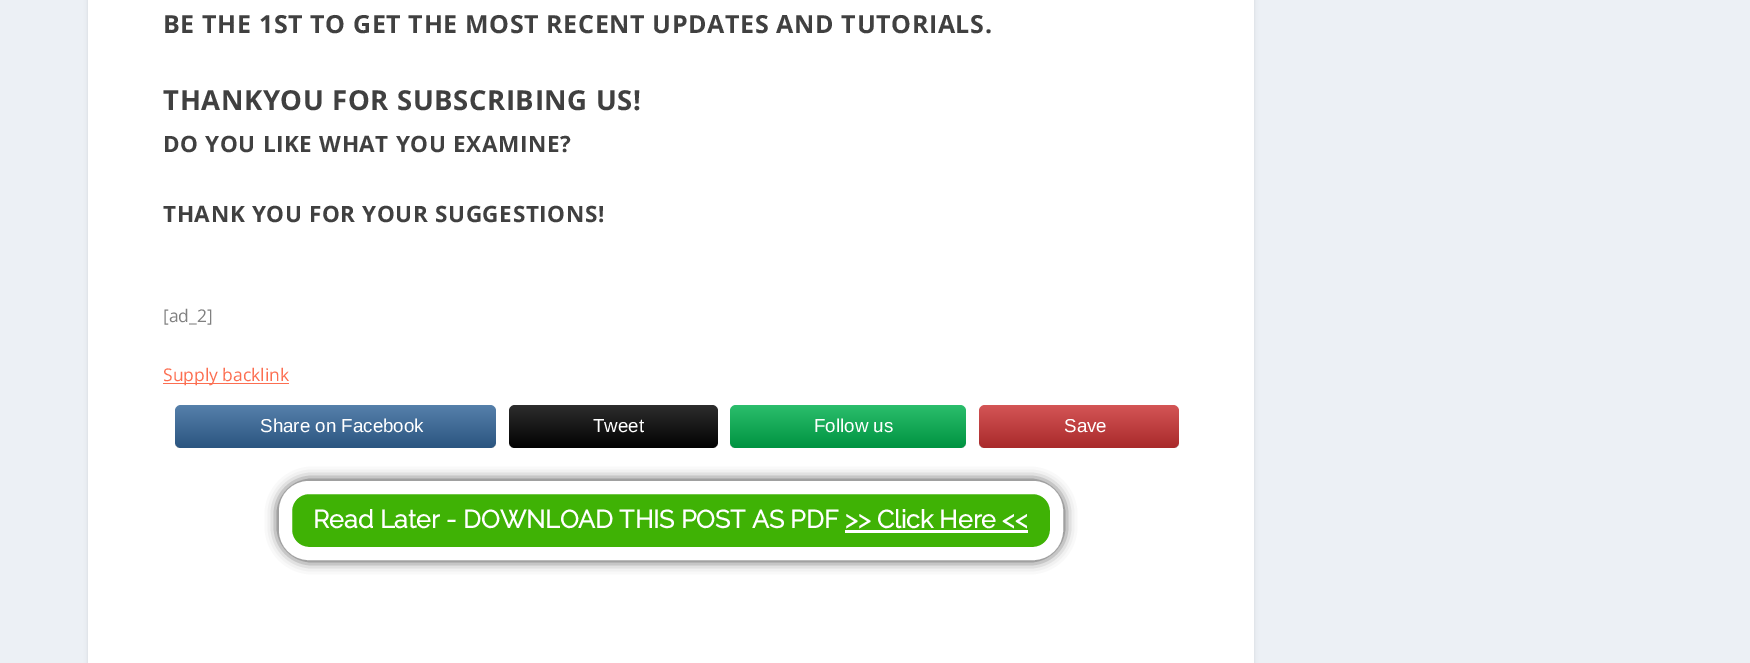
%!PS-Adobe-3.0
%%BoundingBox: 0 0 1750 663
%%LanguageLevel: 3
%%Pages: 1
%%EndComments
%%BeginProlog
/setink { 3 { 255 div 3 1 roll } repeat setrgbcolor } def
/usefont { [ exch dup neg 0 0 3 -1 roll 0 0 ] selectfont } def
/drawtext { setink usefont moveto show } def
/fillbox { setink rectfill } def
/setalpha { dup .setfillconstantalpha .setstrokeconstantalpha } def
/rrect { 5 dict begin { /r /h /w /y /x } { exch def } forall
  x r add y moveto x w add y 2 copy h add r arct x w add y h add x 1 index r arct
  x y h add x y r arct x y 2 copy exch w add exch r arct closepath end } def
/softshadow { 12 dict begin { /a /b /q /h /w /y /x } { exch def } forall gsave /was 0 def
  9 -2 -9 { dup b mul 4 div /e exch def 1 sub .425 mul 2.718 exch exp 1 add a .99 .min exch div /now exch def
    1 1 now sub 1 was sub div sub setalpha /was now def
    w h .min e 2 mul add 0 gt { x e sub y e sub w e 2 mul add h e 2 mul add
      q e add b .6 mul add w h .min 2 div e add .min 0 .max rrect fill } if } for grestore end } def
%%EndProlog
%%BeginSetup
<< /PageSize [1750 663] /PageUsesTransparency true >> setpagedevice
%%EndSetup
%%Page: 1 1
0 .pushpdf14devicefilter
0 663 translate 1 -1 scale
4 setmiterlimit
0 0 1750 663 236 240 245 fillbox
0 0 0 setink
88 -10 1166 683 4 2 0.1 softshadow
88 0 1166 663 255 255 255 fillbox
/OpenSans-Bold 25 usefont
64 64 64 setink
163 33 moveto 0.62 0 (BE THE 1ST TO GET THE MOST RECENT UPDATES AND TUTORIALS.) ashow
/OpenSans-Bold 27.5 usefont
163 110 moveto 0.62 0 (THANKYOU FOR SUBSCRIBING US!) ashow
/OpenSans-Bold 22.5 usefont
163 152 moveto 0.62 0 (DO YOU LIKE WHAT YOU EXAMINE?) ashow
163 222 moveto 0.62 0 (THANK YOU FOR YOUR SUGGESTIONS!) ashow
([ad_2]) 163 322 /OpenSans-Regular 17.5 128 128 128 drawtext
163 383 126 1 252 110 81 fillbox
(Supply backlink) 163 381 /OpenSans-Regular 17.5 252 110 81 drawtext
51 102 153 setink
175 405 321 43 6 rrect fill
0.17 setalpha
gsave 175 405 321 43 6 rrect clip newpath
<< /ShadingType 2 /ColorSpace /DeviceRGB /Coords [336 448 336 405] /Extend [true true] /Function << /FunctionType 2 /Domain [0 1] /C0 [0 0 0] /C1 [1 1 1] /N 1 >> >> shfill grestore
1 setalpha
(Share on Facebook) 260 432 /LiberationSans-Regular 18.75 255 255 255 drawtext
2 2 2 setink
509 405 209 43 6 rrect fill
0.17 setalpha
gsave 509 405 209 43 6 rrect clip newpath
<< /ShadingType 2 /ColorSpace /DeviceRGB /Coords [613 448 613 405] /Extend [true true] /Function << /FunctionType 2 /Domain [0 1] /C0 [0 0 0] /C1 [1 1 1] /N 1 >> >> shfill grestore
1 setalpha
(Tweet) 593 432 /LiberationSans-Regular 18.75 255 255 255 drawtext
0 176 78 setink
730 405 236 43 6 rrect fill
0.17 setalpha
gsave 730 405 236 43 6 rrect clip newpath
<< /ShadingType 2 /ColorSpace /DeviceRGB /Coords [848 448 848 405] /Extend [true true] /Function << /FunctionType 2 /Domain [0 1] /C0 [0 0 0] /C1 [1 1 1] /N 1 >> >> shfill grestore
1 setalpha
(Follow us) 814 432 /LiberationSans-Regular 18.75 255 255 255 drawtext
203 50 51 setink
979 405 200 43 6 rrect fill
0.17 setalpha
gsave 979 405 200 43 6 rrect clip newpath
<< /ShadingType 2 /ColorSpace /DeviceRGB /Coords [1079 448 1079 405] /Extend [true true] /Function << /FunctionType 2 /Domain [0 1] /C0 [0 0 0] /C1 [1 1 1] /N 1 >> >> shfill grestore
1 setalpha
(Save) 1064 432 /LiberationSans-Regular 18.75 255 255 255 drawtext
0 0 0 setink
278 480 786 81 31 6 0.75 softshadow
63 178 5 setink
285.5 487.5 771 66 23.5 rrect gsave fill grestore
255 255 255 setink
13 setlinewidth
stroke
(Read Later - DOWNLOAD THIS POST AS PDF >> Click Here <<) 313 528 /Raleway-Bold 25 255 255 255 drawtext
845 530 183 3 255 255 255 fillbox
.poppdf14devicefilter showpage
%%EOF
